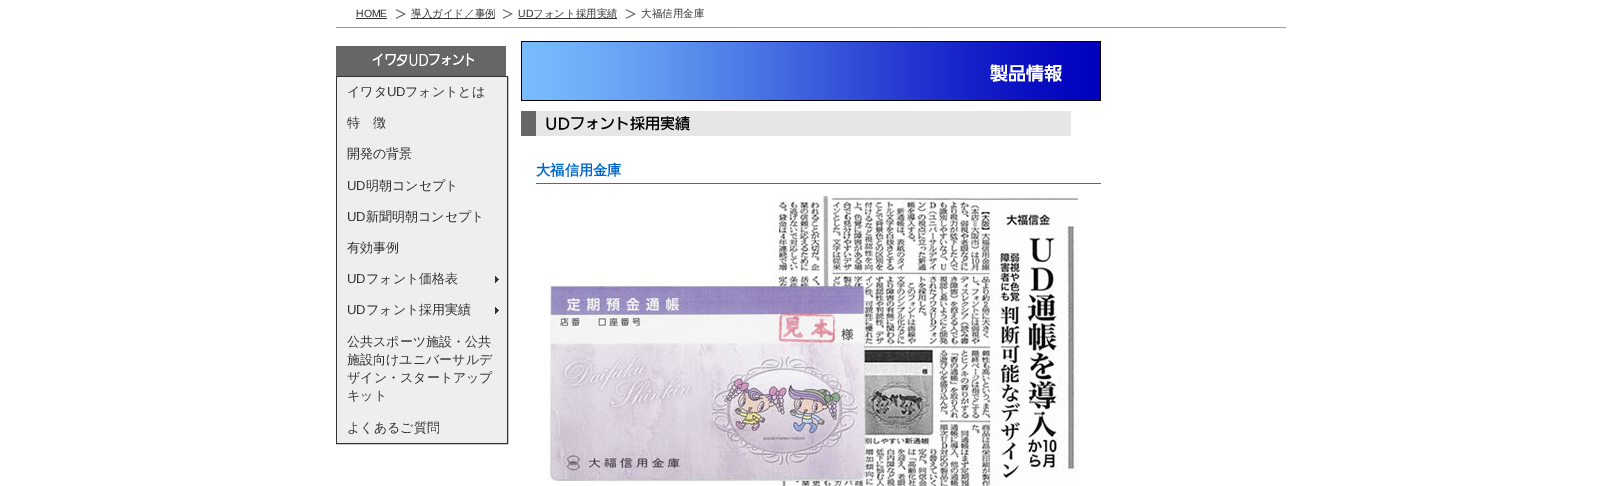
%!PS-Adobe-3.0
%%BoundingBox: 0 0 1622 486
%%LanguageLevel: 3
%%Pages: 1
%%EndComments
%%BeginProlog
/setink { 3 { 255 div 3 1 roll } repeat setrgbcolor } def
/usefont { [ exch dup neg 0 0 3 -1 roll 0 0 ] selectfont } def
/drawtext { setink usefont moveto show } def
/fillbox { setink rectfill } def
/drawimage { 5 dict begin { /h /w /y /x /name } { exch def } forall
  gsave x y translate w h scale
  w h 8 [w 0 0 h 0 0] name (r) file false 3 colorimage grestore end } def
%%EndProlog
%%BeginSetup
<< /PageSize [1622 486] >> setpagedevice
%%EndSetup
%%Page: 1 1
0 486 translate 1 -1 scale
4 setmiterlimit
0 0 1622 486 255 255 255 fillbox
336 27 950 1 153 153 153 fillbox
(HOME) 356 17 /LiberationSans-Regular 10.5 51 51 51 drawtext
356 18 31 1 51 51 51 fillbox
(assets/img1.rgb) 396 9 10 10 drawimage
411 18 84 1 51 51 51 fillbox
(導入ガイド／事例) 411 17 /WenQuanYiZenHei-Medium 10.5 51 51 51 drawtext
(assets/img1.rgb) 503 9 10 10 drawimage
(UD) 518 17 /LiberationSans-Regular 10.5 51 51 51 drawtext
518 18 99 1 51 51 51 fillbox
(フォント採用実績) 533 17 /WenQuanYiZenHei-Medium 10.5 51 51 51 drawtext
(assets/img1.rgb) 626 9 10 10 drawimage
(大福信用金庫) 641 17 /WenQuanYiZenHei-Medium 10.5 51 51 51 drawtext
(assets/img2.rgb) 336 46 170 30 drawimage
336.5 76.5 171 367 rectstroke
337 77 170 366 238 238 238 fillbox
(イワタ) 347 96 /WenQuanYiZenHei-Medium 13 51 51 51 drawtext
(UD) 387 96 /LiberationSans-Regular 13 51 51 51 drawtext
(フォントとは) 405 96 /WenQuanYiZenHei-Medium 13 51 51 51 drawtext
(特　徴) 347 127 /WenQuanYiZenHei-Medium 13 51 51 51 drawtext
(開発の背景) 347 158 /WenQuanYiZenHei-Medium 13 51 51 51 drawtext
(UD) 347 190 /LiberationSans-Regular 13 51 51 51 drawtext
(明朝コンセプト) 366 190 /WenQuanYiZenHei-Medium 13 51 51 51 drawtext
(UD) 347 221 /LiberationSans-Regular 13 51 51 51 drawtext
(新聞明朝コンセプト) 366 221 /WenQuanYiZenHei-Medium 13 51 51 51 drawtext
(有効事例) 347 252 /WenQuanYiZenHei-Medium 13 51 51 51 drawtext
(assets/img3.rgb) 495 276 4 7 drawimage
(UD) 347 283 /LiberationSans-Regular 13 51 51 51 drawtext
(フォント価格表) 366 283 /WenQuanYiZenHei-Medium 13 51 51 51 drawtext
(assets/img3.rgb) 495 307 4 7 drawimage
(UD) 347 314 /LiberationSans-Regular 13 51 51 51 drawtext
(フォント採用実績) 366 314 /WenQuanYiZenHei-Medium 13 51 51 51 drawtext
(公共スポーツ施設・公共) 347 346 /WenQuanYiZenHei-Medium 13 51 51 51 drawtext
(施設向けユニバーサルデ) 347 364 /WenQuanYiZenHei-Medium 13 51 51 51 drawtext
(ザイン・スタートアップ) 347 382 /WenQuanYiZenHei-Medium 13 51 51 51 drawtext
(キット) 347 400 /WenQuanYiZenHei-Medium 13 51 51 51 drawtext
(よくあるご質問) 347 432 /WenQuanYiZenHei-Medium 13 51 51 51 drawtext
(assets/img4.rgb) 521 41 580 60 drawimage
(assets/img5.rgb) 521 111 550 25 drawimage
536 183 565 1 102 102 102 fillbox
(大福信用金庫) 536 175 /WenQuanYiZenHei-Bold 14.25 0 102 204 drawtext
(assets/img6.rgb) 549 195 532 291 drawimage
showpage
%%EOF
